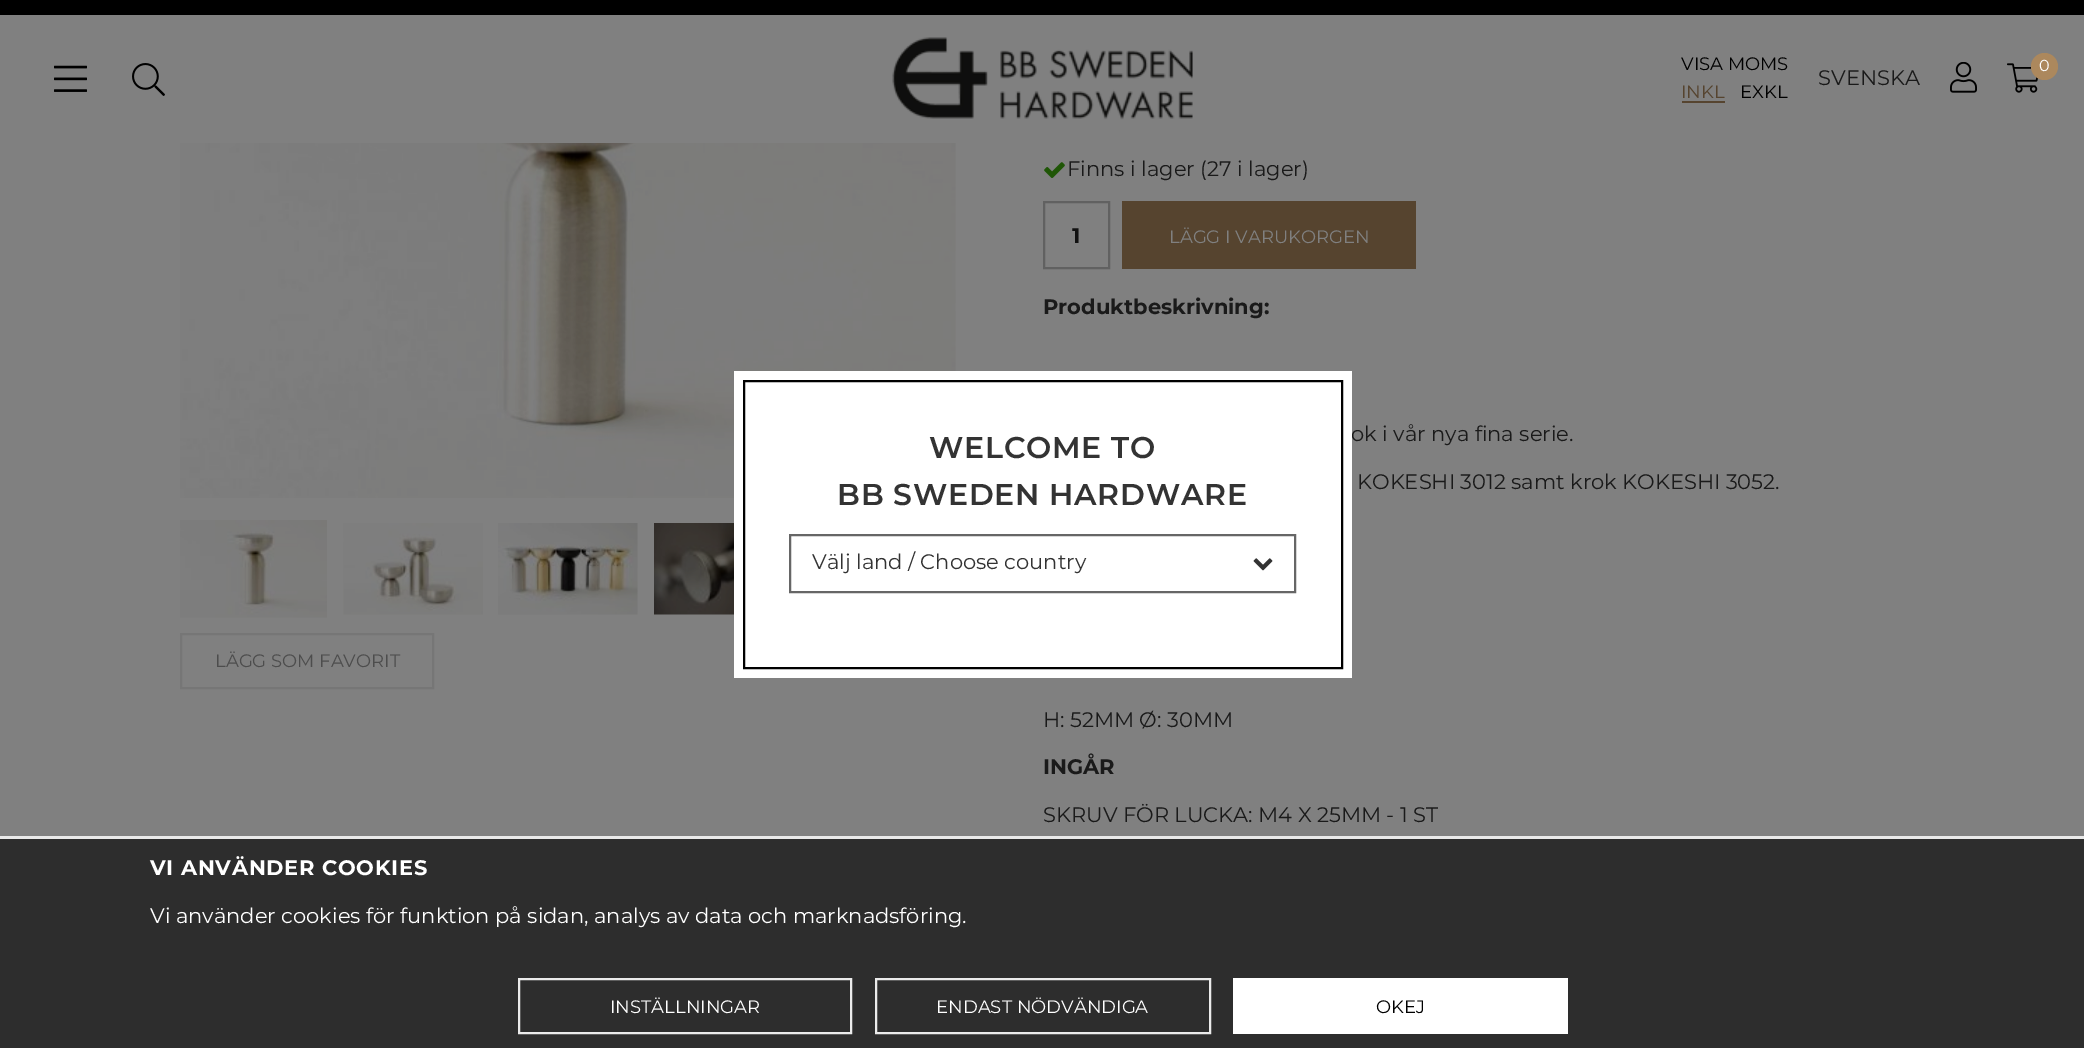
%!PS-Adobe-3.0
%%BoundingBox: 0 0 2084 1048
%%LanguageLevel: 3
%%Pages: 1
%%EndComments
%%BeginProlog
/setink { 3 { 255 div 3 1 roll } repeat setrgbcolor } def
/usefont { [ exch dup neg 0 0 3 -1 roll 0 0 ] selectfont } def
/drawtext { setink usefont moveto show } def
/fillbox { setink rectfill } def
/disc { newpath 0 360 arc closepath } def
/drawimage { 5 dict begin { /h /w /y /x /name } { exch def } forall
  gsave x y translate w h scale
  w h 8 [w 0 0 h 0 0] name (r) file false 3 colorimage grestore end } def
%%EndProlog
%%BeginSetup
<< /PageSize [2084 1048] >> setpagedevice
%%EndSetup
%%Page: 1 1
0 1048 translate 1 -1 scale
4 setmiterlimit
0 0 2084 1048 128 128 128 fillbox
0 0 2084 15 0 0 0 fillbox
(assets/img1.rgb) 892 37 301 83 drawimage
(assets/img2.rgb) 54 65 33 27 drawimage
(assets/img3.rgb) 132 63 33 33 drawimage
(VISA MOMS) 1681 70 /Montserrat-Regular 18 0 0 0 drawtext
(INKL) 1681 98 /Montserrat-Regular 18 86 68 47 drawtext
1682 101 43 2 86 68 47 fillbox
(EXKL) 1740 98 /Montserrat-Regular 18 0 0 0 drawtext
(assets/img4.rgb) 1950 62 27 31 drawimage
(assets/img5.rgb) 2007 63 31 30 drawimage
172 136 93 setink
2044.5 66.5 13.5 disc fill
(0) 2039 71 /Montserrat-Regular 16 255 255 255 drawtext
(SVENSKA) 1818 85 /Montserrat-Regular 21 26 26 26 drawtext
(assets/img7.rgb) 180 143 776 355 drawimage
(ok i vår nya fina serie.) 1351 441 /Montserrat-Regular 21 26 26 26 drawtext
734 371 618 307 255 255 255 fillbox
0 0 0 setink
2 setlinewidth
744 381 598 287 rectstroke
/Montserrat-SemiBold 30 usefont
51 51 51 setink
929 458 moveto 0.75 0 (WELCOME TO) ashow
837 505 moveto 0.75 0 (BB SWEDEN HARDWARE) ashow
102 102 102 setink
790 535 505 57 rectstroke
(Välj land / Choose country) 812 569 /Montserrat-Regular 21 51 51 51 drawtext
(assets/img6.rgb) 1253 558 20 13 drawimage
(assets/img8.rgb) 180 520 147 98 drawimage
(assets/img9.rgb) 343 523 140 92 drawimage
(assets/img10.rgb) 498 523 140 92 drawimage
(assets/img11.rgb) 654 523 80 92 drawimage
(assets/img12.rgb) 1044 162 21 16 drawimage
(Finns i lager \(27 i lager\)) 1067 176 /Montserrat-Regular 21 26 26 26 drawtext
97 97 97 setink
1044 202 65 66 rectstroke
(1) 1072 243 /Montserrat-Bold 21 17 17 17 drawtext
1122 201 294 68 86 68 47 fillbox
(LÄGG I VARUKORGEN) 1169 243 /Montserrat-Regular 18 128 128 128 drawtext
(Produktbeskrivning:) 1043 314 /Montserrat-Bold 21 26 26 26 drawtext
(KOKESHI 3012 samt krok KOKESHI 3052.) 1357 489 /Montserrat-Regular 21 26 26 26 drawtext
(H: 52MM Ø: 30MM) 1043 727 /Montserrat-Regular 21 26 26 26 drawtext
(INGÅR) 1043 774 /Montserrat-Bold 21 26 26 26 drawtext
(SKRUV FÖR LUCKA: M4 X 25MM - 1 ST) 1043 822 /Montserrat-Regular 21 26 26 26 drawtext
118 118 118 setink
181 634 252 54 rectstroke
(LÄGG SOM FAVORIT) 215 667 /Montserrat-Regular 18 77 77 77 drawtext
0 839 2084 209 45 45 45 fillbox
0 836 2084 3 233 233 233 fillbox
/Montserrat-Bold 21 usefont
255 255 255 setink
150 875 moveto 0.75 0 (VI ANVÄNDER COOKIES) ashow
(Vi använder cookies för funktion på sidan, analys av data och marknadsföring.) 150 923 /Montserrat-Regular 21 255 255 255 drawtext
235 235 235 setink
519 979 332 54 rectstroke
(INSTÄLLNINGAR) 610 1013 /Montserrat-Regular 18 255 255 255 drawtext
235 235 235 setink
876 979 334 54 rectstroke
(ENDAST NÖDVÄNDIGA) 936 1013 /Montserrat-Regular 18 255 255 255 drawtext
1233 978 335 56 255 255 255 fillbox
(OKEJ) 1376 1013 /Montserrat-Regular 18 0 0 0 drawtext
showpage
%%EOF
